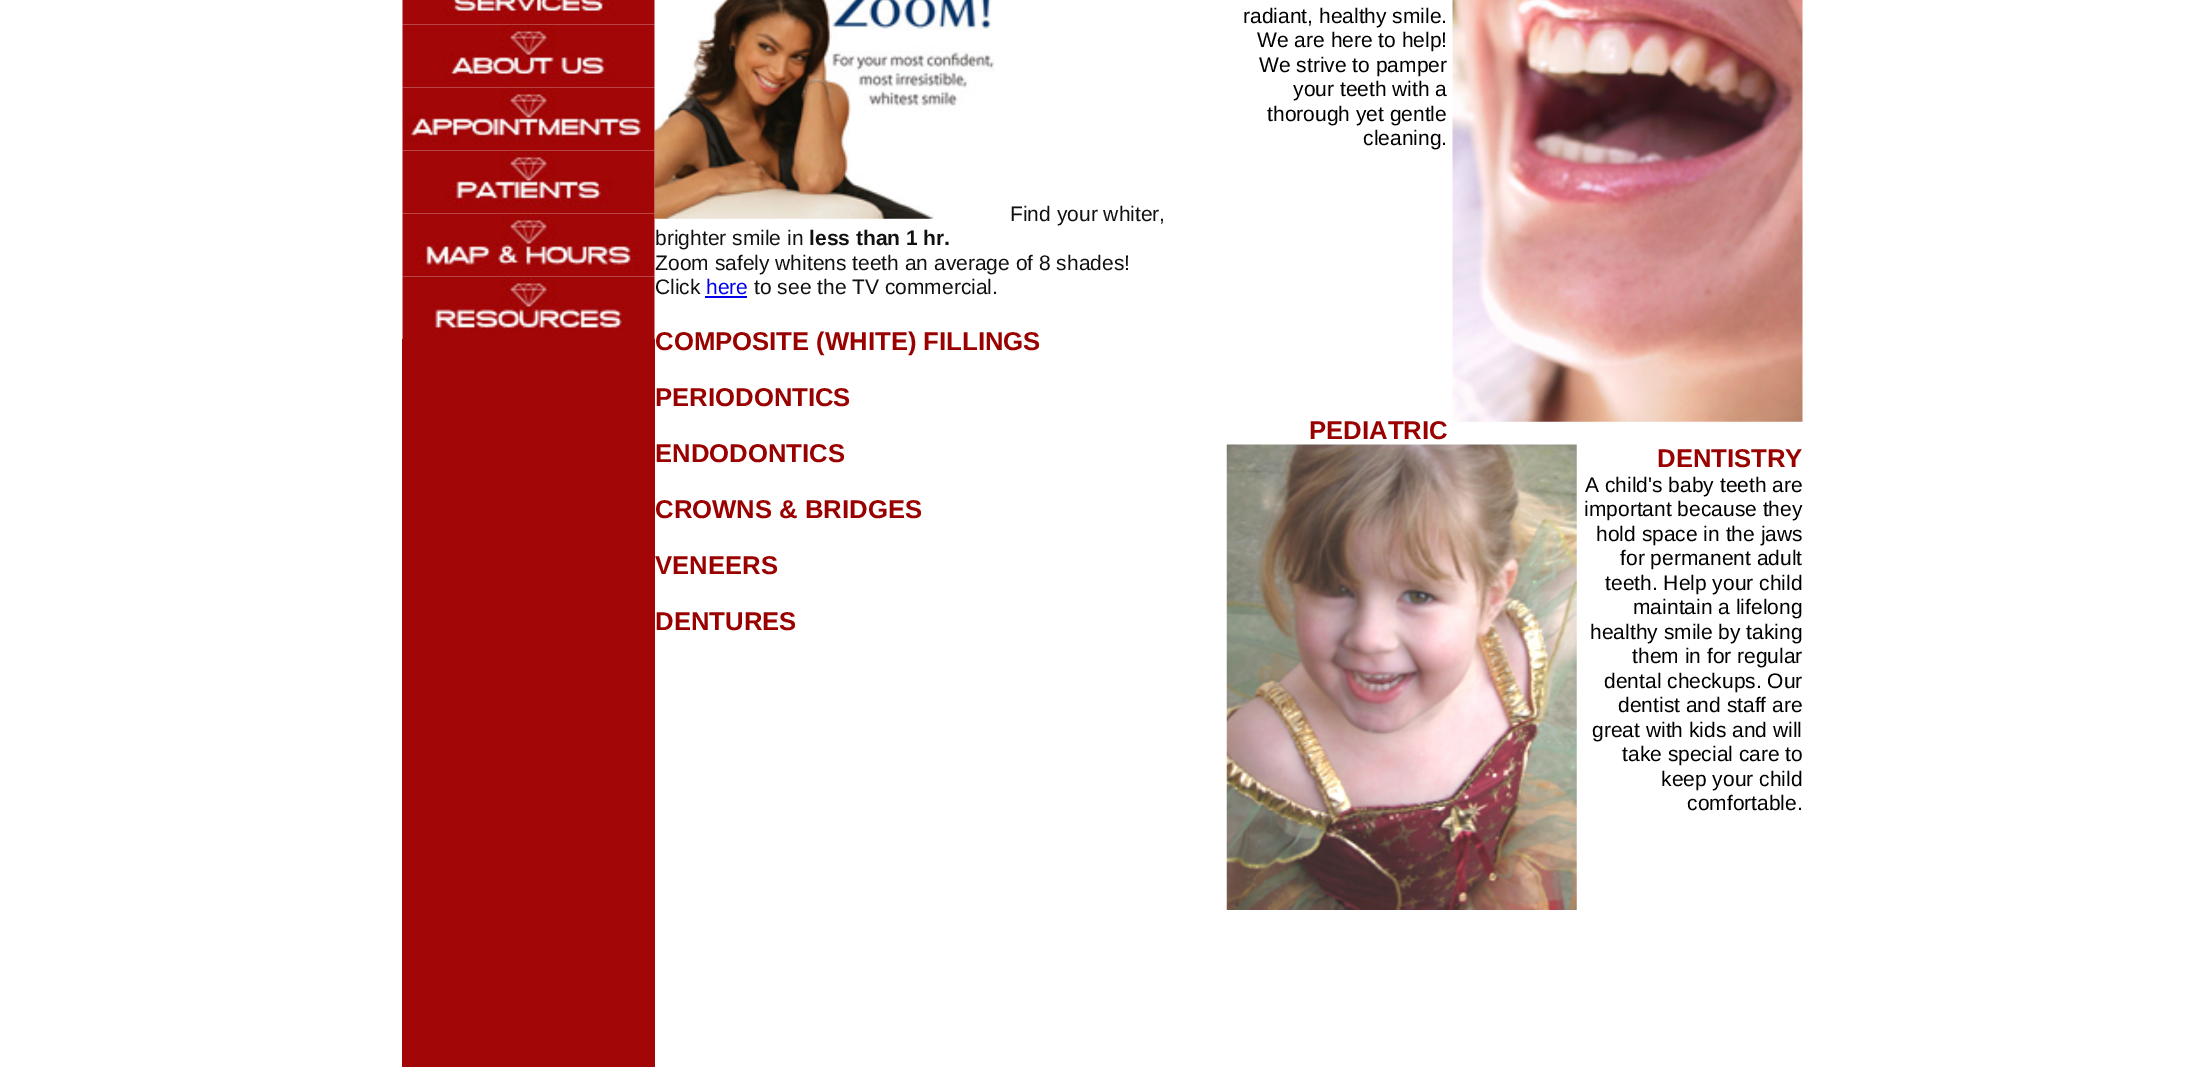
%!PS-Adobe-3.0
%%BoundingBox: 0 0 2205 1067
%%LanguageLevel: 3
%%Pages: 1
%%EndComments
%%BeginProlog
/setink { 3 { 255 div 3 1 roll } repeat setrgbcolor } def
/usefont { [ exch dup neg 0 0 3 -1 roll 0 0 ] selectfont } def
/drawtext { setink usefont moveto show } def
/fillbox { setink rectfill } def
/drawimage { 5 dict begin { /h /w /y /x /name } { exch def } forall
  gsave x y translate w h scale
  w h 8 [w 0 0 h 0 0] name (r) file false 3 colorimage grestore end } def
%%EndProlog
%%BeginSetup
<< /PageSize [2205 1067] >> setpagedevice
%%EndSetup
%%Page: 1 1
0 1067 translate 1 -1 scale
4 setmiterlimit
0 0 2205 1067 255 255 255 fillbox
(assets/img7.rgb) 654 0 341 219 drawimage
(assets/img1.rgb) 402 0 253 25 drawimage
(assets/img2.rgb) 402 24 253 64 drawimage
(assets/img3.rgb) 402 87 253 64 drawimage
(assets/img4.rgb) 402 150 253 64 drawimage
(assets/img5.rgb) 402 213 253 64 drawimage
(assets/img6.rgb) 402 276 253 63 drawimage
402 339 253 728 162 6 7 fillbox
(Find your whiter,) 1010 221 /LiberationSans-Regular 21 17 17 17 drawtext
(brighter smile in) 655 245 /LiberationSans-Regular 21 17 17 17 drawtext
(less than 1 hr.) 809 245 /LiberationSans-Bold 21 17 17 17 drawtext
(Zoom safely whitens teeth an average of 8 shades!) 655 270 /LiberationSans-Regular 21 17 17 17 drawtext
(Click) 655 294 /LiberationSans-Regular 21 17 17 17 drawtext
(here) 706 294 /LiberationSans-Regular 21 0 0 238 drawtext
705 296 42 2 0 0 238 fillbox
(to see the TV commercial.) 754 294 /LiberationSans-Regular 21 17 17 17 drawtext
(COMPOSITE \(WHITE\) FILLINGS) 655 350 /LiberationSans-Bold 25.7 153 0 0 drawtext
(PERIODONTICS) 655 406 /LiberationSans-Bold 25.7 153 0 0 drawtext
(ENDODONTICS) 655 462 /LiberationSans-Bold 25.7 153 0 0 drawtext
(CROWNS & BRIDGES) 655 518 /LiberationSans-Bold 25.7 153 0 0 drawtext
(VENEERS) 655 574 /LiberationSans-Bold 25.7 153 0 0 drawtext
(DENTURES) 655 630 /LiberationSans-Bold 25.7 153 0 0 drawtext
(radiant, healthy smile.) 1243 23 /LiberationSans-Regular 21 0 0 0 drawtext
(assets/img8.rgb) 1452 0 351 422 drawimage
(We are here to help!) 1257 47 /LiberationSans-Regular 21 0 0 0 drawtext
(We strive to pamper) 1259 72 /LiberationSans-Regular 21 0 0 0 drawtext
(your teeth with a) 1293 96 /LiberationSans-Regular 21 0 0 0 drawtext
(thorough yet gentle) 1267 121 /LiberationSans-Regular 21 0 0 0 drawtext
(cleaning.) 1363 145 /LiberationSans-Regular 21 0 0 0 drawtext
(PEDIATRIC) 1309 439 /LiberationSans-Bold 25.7 153 0 0 drawtext
(assets/img9.rgb) 1226 444 351 466 drawimage
(DENTISTRY) 1657 467 /LiberationSans-Bold 25.7 153 0 0 drawtext
(A child's baby teeth are) 1585 492 /LiberationSans-Regular 21 0 0 0 drawtext
(important because they) 1584 516 /LiberationSans-Regular 21 0 0 0 drawtext
(hold space in the jaws) 1596 541 /LiberationSans-Regular 21 0 0 0 drawtext
(for permanent adult) 1620 565 /LiberationSans-Regular 21 0 0 0 drawtext
(teeth. Help your child) 1605 590 /LiberationSans-Regular 21 0 0 0 drawtext
(maintain a lifelong) 1633 614 /LiberationSans-Regular 21 0 0 0 drawtext
(healthy smile by taking) 1590 639 /LiberationSans-Regular 21 0 0 0 drawtext
(them in for regular) 1632 663 /LiberationSans-Regular 21 0 0 0 drawtext
(dental checkups. Our) 1604 688 /LiberationSans-Regular 21 0 0 0 drawtext
(dentist and staff are) 1618 712 /LiberationSans-Regular 21 0 0 0 drawtext
(great with kids and will) 1592 737 /LiberationSans-Regular 21 0 0 0 drawtext
(take special care to) 1622 761 /LiberationSans-Regular 21 0 0 0 drawtext
(keep your child) 1661 786 /LiberationSans-Regular 21 0 0 0 drawtext
(comfortable.) 1687 810 /LiberationSans-Regular 21 0 0 0 drawtext
showpage
%%EOF
